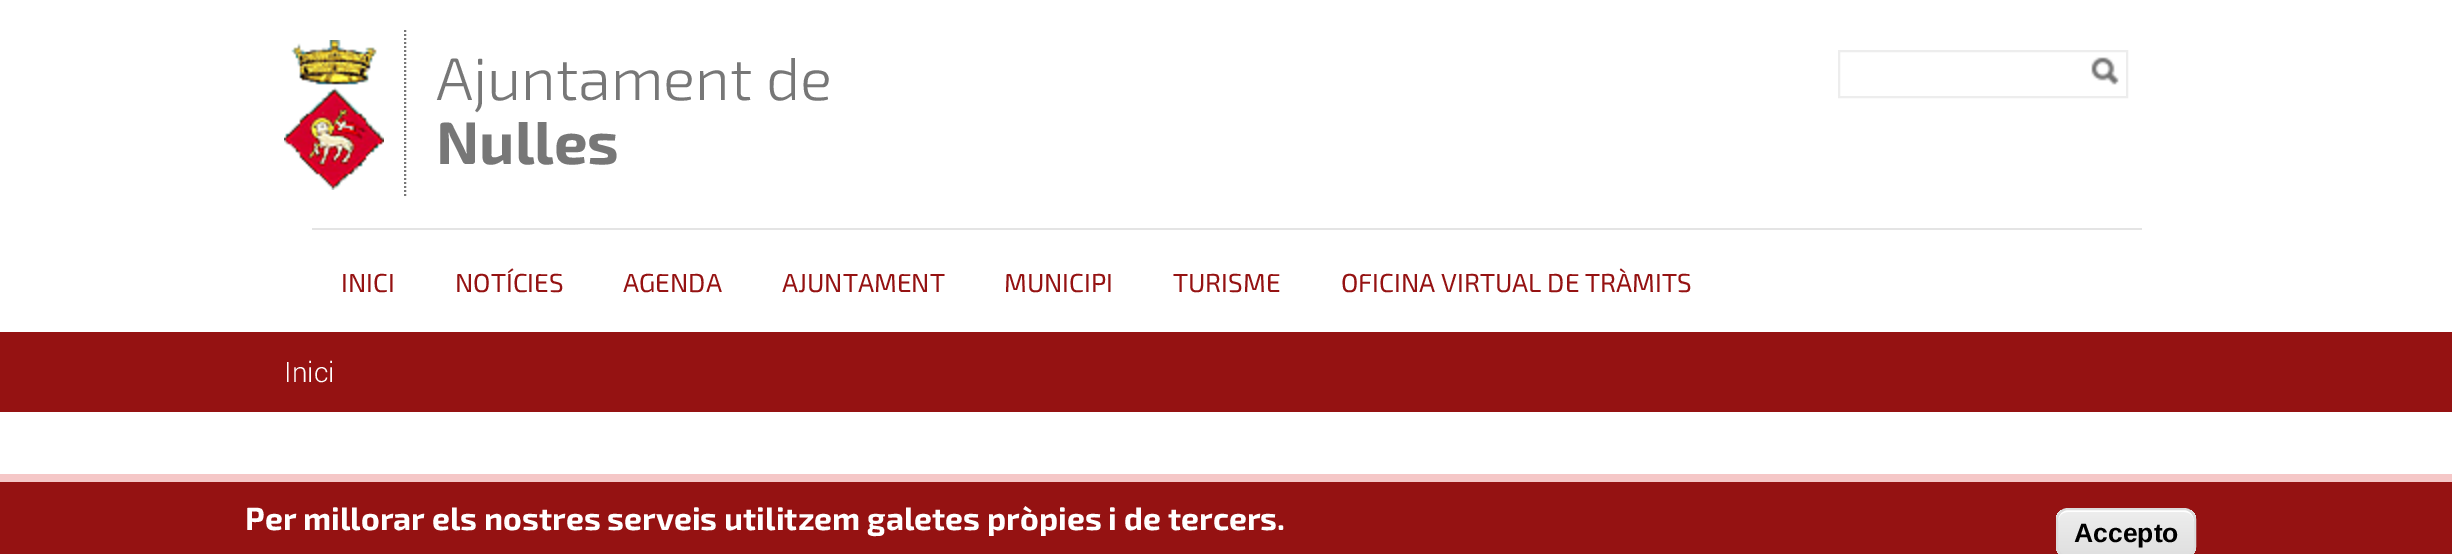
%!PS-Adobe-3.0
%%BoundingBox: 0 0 2452 554
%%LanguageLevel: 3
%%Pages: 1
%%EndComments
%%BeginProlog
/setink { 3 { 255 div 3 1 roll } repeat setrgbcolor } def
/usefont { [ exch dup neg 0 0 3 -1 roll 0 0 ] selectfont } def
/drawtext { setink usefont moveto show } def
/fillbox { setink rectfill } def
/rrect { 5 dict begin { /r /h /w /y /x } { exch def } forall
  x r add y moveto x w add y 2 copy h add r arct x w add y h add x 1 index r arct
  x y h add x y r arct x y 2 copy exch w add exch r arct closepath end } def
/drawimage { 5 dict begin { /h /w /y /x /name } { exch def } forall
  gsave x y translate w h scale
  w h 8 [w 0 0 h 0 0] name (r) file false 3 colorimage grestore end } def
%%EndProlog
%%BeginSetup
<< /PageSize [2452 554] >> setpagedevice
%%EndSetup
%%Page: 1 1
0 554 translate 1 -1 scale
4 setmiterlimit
0 0 2452 554 255 255 255 fillbox
(assets/img1.rgb) 284 40 100 150 drawimage
119 119 119 setink
2 setlinewidth
[2 2] 0 setdash
405 30 moveto 405 198 lineto stroke
(Ajuntament de) 436 100 /Exo2-Light 60 119 119 119 drawtext
(Nulles) 436 164 /Exo2-Bold 60 119 119 119 drawtext
237 237 237 setink
[] 0 setdash
1839 51 288 46 rectstroke
(assets/img2.rgb) 2091 57 28 28 drawimage
312 228 1830 2 228 228 228 fillbox
(INICI) 341 292 /Exo2-Regular 26 149 18 18 drawtext
(NOTÍCIES) 455 292 /Exo2-Regular 26 149 18 18 drawtext
(AGENDA) 623 292 /Exo2-Regular 26 149 18 18 drawtext
(AJUNTAMENT) 782 292 /Exo2-Regular 26 149 18 18 drawtext
(MUNICIPI) 1004 292 /Exo2-Regular 26 149 18 18 drawtext
(TURISME) 1173 292 /Exo2-Regular 26 149 18 18 drawtext
(OFICINA VIRTUAL DE TRÀMITS) 1341 292 /Exo2-Regular 26 149 18 18 drawtext
0 332 2452 80 149 18 18 fillbox
(Inici) 284 382 /Roboto-Light 28 255 255 255 drawtext
0 482 2452 72 149 18 18 fillbox
0 474 2452 8 245 199 199 fillbox
(Per millorar els nostres serveis utilitzem galetes pròpies i de tercers.) 245 530 /Exo2-Bold 32 255 255 255 drawtext
gsave
2056 508 140 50 12 rrect clip newpath
gsave 2056 510 moveto 2196 510 lineto 2196 554 lineto 2056 554 lineto closepath clip newpath
<< /ShadingType 2 /ColorSpace /DeviceRGB /Coords [2126 510 2126 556] /Extend [true true] /Function << /FunctionType 3 /Domain [0 1] /Functions [<< /FunctionType 2 /Domain [0 1] /C0 [0.929 0.929 0.929] /C1 [0.929 0.929 0.929] /N 1 >> << /FunctionType 2 /Domain [0 1] /C0 [0.929 0.929 0.929] /C1 [0.875 0.875 0.875] /N 1 >>] /Bounds [0.05] /Encode [0 1 0 1] >> >> shfill grestore
grestore
2068 512 moveto 2184 512 lineto 2190 512 2194 516 2194 522 curveto 2194 505 2177 510 2165 510 curveto 2087 510 lineto 2075 510 2058 505 2058 522 curveto 2058 516 2062 512 2068 512 curveto closepath fill
220 220 220 setink
2057 509 138 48 11 rrect stroke
(Accepto) 2074 542 /LiberationSans-Bold 26.5 0 0 0 drawtext
showpage
%%EOF
